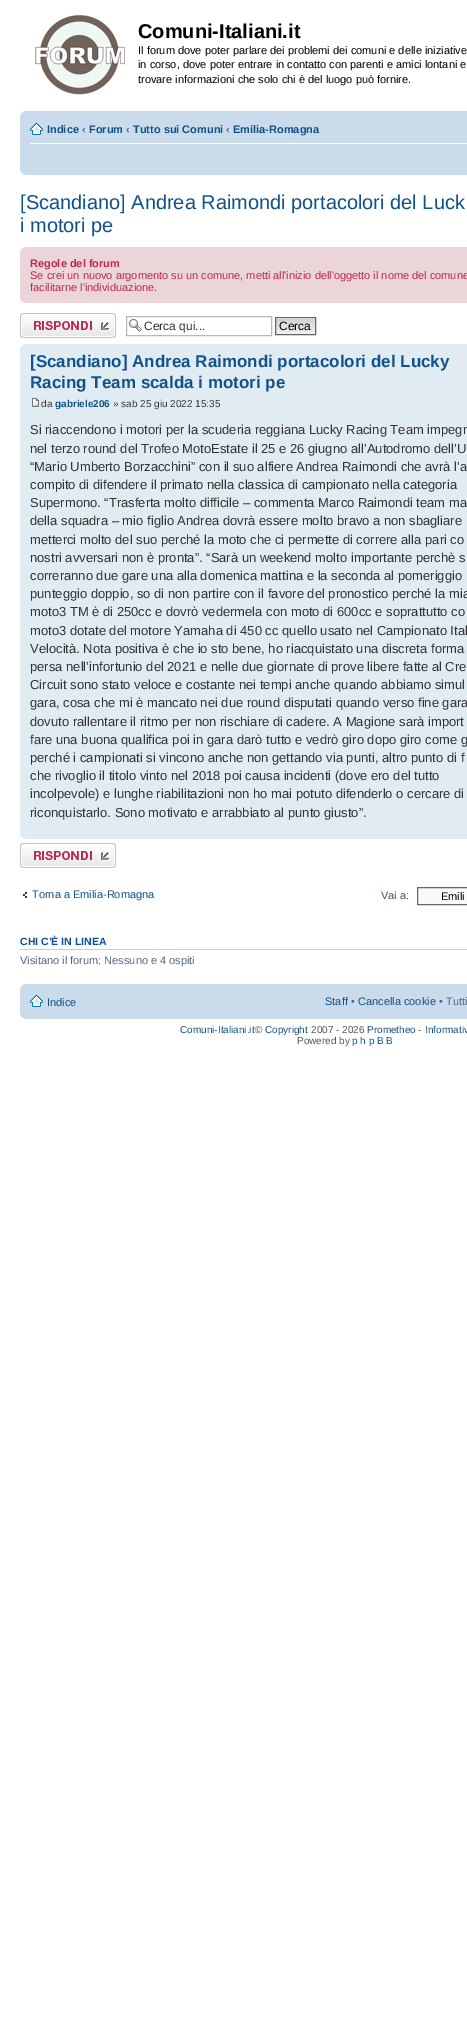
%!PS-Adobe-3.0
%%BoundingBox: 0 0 467 2022
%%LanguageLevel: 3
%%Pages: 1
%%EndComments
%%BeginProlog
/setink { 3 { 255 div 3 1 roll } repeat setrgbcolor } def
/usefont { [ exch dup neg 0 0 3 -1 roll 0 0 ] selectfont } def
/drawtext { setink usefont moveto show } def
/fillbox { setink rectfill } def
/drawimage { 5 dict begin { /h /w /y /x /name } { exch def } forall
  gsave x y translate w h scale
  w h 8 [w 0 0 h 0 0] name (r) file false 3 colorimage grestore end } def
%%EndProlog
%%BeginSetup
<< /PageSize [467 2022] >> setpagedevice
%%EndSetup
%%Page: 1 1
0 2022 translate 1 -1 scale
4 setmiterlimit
0 0 467 2022 255 255 255 fillbox
(assets/img1.rgb) 35 15 90 80 drawimage
(Comuni-Italiani.it) 138 38 /LiberationSans-Bold 20 0 0 0 drawtext
(Il forum dove poter parlare dei problemi dei comuni e delle iniziative) 138 54 /LiberationSans-Regular 11 0 0 0 drawtext
(in corso, dove poter entrare in contatto con parenti e amici lontani e) 138 68 /LiberationSans-Regular 11 0 0 0 drawtext
(trovare informazioni che solo chi è del luogo può fornire.) 138 83 /LiberationSans-Regular 11 0 0 0 drawtext
20 111 447 64 202 220 235 fillbox
(assets/img2.rgb) 20 111 5 5 drawimage
30 143 437 1 255 255 255 fillbox
(assets/img3.rgb) 30 123 13 12 drawimage
(Indice) 47 133 /LiberationSans-Bold 11 16 82 137 drawtext
(‹) 82 133 /LiberationSans-Bold 11 83 100 130 drawtext
(Forum) 89 133 /LiberationSans-Bold 11 16 82 137 drawtext
(‹) 126 133 /LiberationSans-Bold 11 83 100 130 drawtext
(Tutto sui Comuni) 133 133 /LiberationSans-Bold 11 16 82 137 drawtext
(‹) 226 133 /LiberationSans-Bold 11 83 100 130 drawtext
(Emilia-Romagna) 233 133 /LiberationSans-Bold 11 16 82 137 drawtext
(assets/img4.rgb) 20 170 5 5 drawimage
([Scandiano] Andrea Raimondi portacolori del Luck) 20 209 /LiberationSans-Regular 20 16 82 137 drawtext
(i motori pe) 20 232 /LiberationSans-Regular 20 16 82 137 drawtext
20 247 447 56 236 213 216 fillbox
(assets/img5.rgb) 20 247 5 5 drawimage
(Regole del forum) 30 267 /LiberationSans-Bold 11 188 42 77 drawtext
(Se crei un nuovo argomento su un comune, metti all'inizio dell'oggetto il nome del comune) 30 279 /LiberationSans-Regular 11 188 42 77 drawtext
(facilitarne l'individuazione.) 30 291 /LiberationSans-Regular 11 188 42 77 drawtext
(assets/img6.rgb) 20 298 5 5 drawimage
(assets/img7.rgb) 20 313 96 25 drawimage
(assets/img8.rgb) 129 319 13 13 drawimage
180 186 192 setink
126.5 316.5 145 19 rectstroke
(Cerca qui...) 144 330 /LiberationSans-Regular 12 51 51 51 drawtext
(assets/img9.rgb) 276 318 39 16 drawimage
102 102 102 setink
275.5 317.5 40 17 rectstroke
(Cerca) 279 330 /LiberationSans-Regular 12 0 0 0 drawtext
20 344 447 495 225 235 242 fillbox
(assets/img10.rgb) 20 344 5 5 drawimage
([Scandiano] Andrea Raimondi portacolori del Lucky) 30 367 /LiberationSans-Bold 17 16 82 137 drawtext
(Racing Team scalda i motori pe) 30 388 /LiberationSans-Bold 17 16 82 137 drawtext
(assets/img11.rgb) 32 398 7 9 drawimage
(da) 41 407 /LiberationSans-Regular 10 51 51 51 drawtext
(gabriele206) 55 407 /LiberationSans-Bold 10 16 82 137 drawtext
(» sab 25 giu 2022 15:35) 113 407 /LiberationSans-Regular 10 51 51 51 drawtext
(Si riaccendono i motori per la scuderia reggiana Lucky Racing Team impegn) 30 434 /LiberationSans-Regular 13 51 51 51 drawtext
(nel terzo round del Trofeo MotoEstate il 25 e 26 giugno all’Autodromo dell’U) 30 453 /LiberationSans-Regular 13 51 51 51 drawtext
(“Mario Umberto Borzacchini” con il suo alfiere Andrea Raimondi che avrà l’a) 30 471 /LiberationSans-Regular 13 51 51 51 drawtext
(compito di difendere il primato nella classica di campionato nella categoria) 30 489 /LiberationSans-Regular 13 51 51 51 drawtext
(Supermono. “Trasferta molto difficile – commenta Marco Raimondi team ma) 30 507 /LiberationSans-Regular 13 51 51 51 drawtext
(della squadra – mio figlio Andrea dovrà essere molto bravo a non sbagliare) 30 525 /LiberationSans-Regular 13 51 51 51 drawtext
(metterci molto del suo perché la moto che ci permette di correre alla pari co) 30 544 /LiberationSans-Regular 13 51 51 51 drawtext
(nostri avversari non è pronta”. “Sarà un weekend molto importante perchè s) 30 562 /LiberationSans-Regular 13 51 51 51 drawtext
(correranno due gare una alla domenica mattina e la seconda al pomeriggio) 30 580 /LiberationSans-Regular 13 51 51 51 drawtext
(punteggio doppio, so di non partire con il favore del pronostico perché la mia) 30 598 /LiberationSans-Regular 13 51 51 51 drawtext
(moto3 TM è di 250cc e dovrò vedermela con moto di 600cc e soprattutto co) 30 616 /LiberationSans-Regular 13 51 51 51 drawtext
(moto3 dotate del motore Yamaha di 450 cc quello usato nel Campionato Ital) 30 635 /LiberationSans-Regular 13 51 51 51 drawtext
(Velocità. Nota positiva è che io sto bene, ho riacquistato una discreta forma) 30 653 /LiberationSans-Regular 13 51 51 51 drawtext
(persa nell’infortunio del 2021 e nelle due giornate di prove libere fatte al Cre) 30 671 /LiberationSans-Regular 13 51 51 51 drawtext
(Circuit sono stato veloce e costante nei tempi anche quando abbiamo simul) 30 689 /LiberationSans-Regular 13 51 51 51 drawtext
(gara, cosa che mi è mancato nei due round disputati quando verso fine gara) 30 707 /LiberationSans-Regular 13 51 51 51 drawtext
(dovuto rallentare il ritmo per non rischiare di cadere. A Magione sarà import) 30 726 /LiberationSans-Regular 13 51 51 51 drawtext
(fare una buona qualifica poi in gara darò tutto e vedrò giro dopo giro come g) 30 744 /LiberationSans-Regular 13 51 51 51 drawtext
(perché i campionati si vincono anche non gettando via punti, altro punto di f) 30 762 /LiberationSans-Regular 13 51 51 51 drawtext
(che rivoglio il titolo vinto nel 2018 poi causa incidenti \(dove ero del tutto) 30 780 /LiberationSans-Regular 13 51 51 51 drawtext
(incolpevole\) e lunghe riabilitazioni non ho mai potuto difenderlo o cercare di) 30 798 /LiberationSans-Regular 13 51 51 51 drawtext
(riconquistarlo. Sono motivato e arrabbiato al punto giusto”.) 30 817 /LiberationSans-Regular 13 51 51 51 drawtext
(assets/img12.rgb) 20 834 5 5 drawimage
(assets/img7.rgb) 20 843 96 25 drawimage
(assets/img13.rgb) 23 892 4 6 drawimage
(Torna a Emilia-Romagna) 32 898 /LiberationSans-Regular 11 16 82 137 drawtext
(Vai a:) 381 899 /LiberationSans-Regular 11 66 80 103 drawtext
250 250 250 setink
417.5 887.5 moveto 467.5 887.5 lineto 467.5 904.5 lineto 417.5 904.5 lineto closepath gsave fill grestore
102 102 102 setink
stroke
(Emili) 441 900 /LiberationSans-Regular 11 0 0 0 drawtext
20 949 447 1 204 204 204 fillbox
(CHI C’È IN LINEA) 20 945 /LiberationSans-Bold 10.5 17 80 152 drawtext
(Visitano il forum: Nessuno e 4 ospiti) 20 964 /LiberationSans-Regular 11 83 100 130 drawtext
20 984 447 35 202 220 235 fillbox
(assets/img2.rgb) 20 984 5 5 drawimage
(assets/img3.rgb) 30 995 13 12 drawimage
(Indice) 47 1006 /LiberationSans-Regular 11 16 82 137 drawtext
(Staff) 325 1005 /LiberationSans-Regular 11 16 82 137 drawtext
(•) 351 1005 /LiberationSans-Regular 11 83 100 130 drawtext
(Cancella cookie) 358 1005 /LiberationSans-Regular 11 16 82 137 drawtext
(• Tutti) 439 1005 /LiberationSans-Regular 11 83 100 130 drawtext
(assets/img4.rgb) 20 1014 5 5 drawimage
(Comuni-Italiani.it) 180 1033 /LiberationSans-Regular 10 16 82 137 drawtext
(©) 255 1033 /LiberationSans-Regular 10 85 85 85 drawtext
(Copyright) 265 1033 /LiberationSans-Regular 10 16 82 137 drawtext
(2007 - 2026) 311 1033 /LiberationSans-Regular 10 85 85 85 drawtext
(Prometheo) 367 1033 /LiberationSans-Regular 10 16 82 137 drawtext
(-) 418 1033 /LiberationSans-Regular 10 85 85 85 drawtext
(Informativ) 425 1033 /LiberationSans-Regular 10 16 82 137 drawtext
(Powered by) 297 1044 /LiberationSans-Regular 10 85 85 85 drawtext
(p h p B B) 352 1044 /LiberationSans-Regular 10 16 82 137 drawtext
showpage
%%EOF
